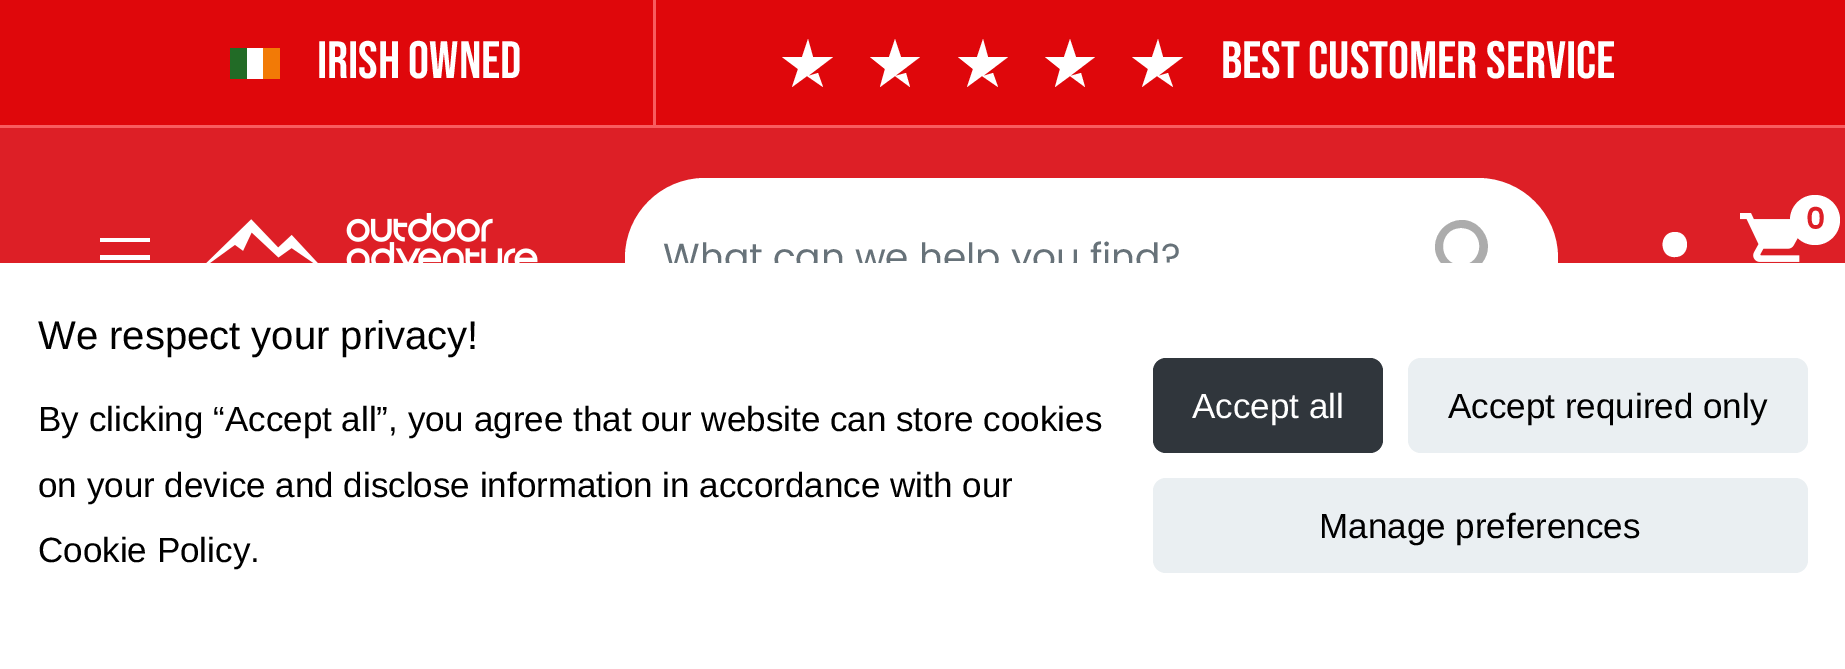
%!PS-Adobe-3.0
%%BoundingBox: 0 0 1845 669
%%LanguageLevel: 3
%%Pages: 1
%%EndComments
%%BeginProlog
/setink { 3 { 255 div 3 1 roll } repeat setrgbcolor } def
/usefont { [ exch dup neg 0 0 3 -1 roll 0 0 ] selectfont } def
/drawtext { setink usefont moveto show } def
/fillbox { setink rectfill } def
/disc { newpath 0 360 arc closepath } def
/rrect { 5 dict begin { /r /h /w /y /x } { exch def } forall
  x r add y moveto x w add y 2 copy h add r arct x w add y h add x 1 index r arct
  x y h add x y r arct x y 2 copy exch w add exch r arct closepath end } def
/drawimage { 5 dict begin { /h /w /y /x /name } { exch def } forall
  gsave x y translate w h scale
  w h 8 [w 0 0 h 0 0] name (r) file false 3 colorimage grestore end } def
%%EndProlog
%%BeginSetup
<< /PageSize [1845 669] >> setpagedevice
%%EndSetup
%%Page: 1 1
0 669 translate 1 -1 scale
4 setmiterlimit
0 0 1845 669 223 7 11 fillbox
0 125 1845 3 248 92 95 fillbox
230 48 17 31 34 107 38 fillbox
247 48 16 31 255 255 255 fillbox
263 48 17 31 242 122 6 fillbox
(IRISH OWNED) 317 78 /BebasNeue-Regular 52.5 255 255 255 drawtext
653 0 3 125 248 92 95 fillbox
255 255 255 setink
808 39 moveto 802 57 lineto 782 57 lineto 798 69 lineto 792 87 lineto 807 76 lineto 823 87 lineto 818 73 lineto 808 76 lineto 833 57 lineto 813 57 lineto closepath fill
895 39 moveto 889 57 lineto 870 57 lineto 885 69 lineto 880 87 lineto 895 76 lineto 910 87 lineto 906 73 lineto 895 76 lineto 920 57 lineto 901 57 lineto closepath fill
983 39 moveto 977 57 lineto 958 57 lineto 973 69 lineto 967 87 lineto 982 76 lineto 998 87 lineto 993 73 lineto 983 76 lineto 1008 57 lineto 988 57 lineto closepath fill
1070 39 moveto 1064 57 lineto 1045 57 lineto 1060 69 lineto 1055 87 lineto 1070 76 lineto 1085 87 lineto 1081 73 lineto 1070 76 lineto 1095 57 lineto 1076 57 lineto closepath fill
1158 39 moveto 1152 57 lineto 1132 57 lineto 1148 69 lineto 1142 87 lineto 1157 76 lineto 1173 87 lineto 1168 73 lineto 1158 76 lineto 1183 57 lineto 1163 57 lineto closepath fill
(BEST CUSTOMER SERVICE) 1221 78 /BebasNeue-Regular 52.5 255 255 255 drawtext
0 128 1845 135 221 31 38 fillbox
255 255 255 setink
100 272 moveto 150 272 lineto 150 278 lineto 100 278 lineto closepath 100 238 moveto 150 238 lineto 150 242 lineto 100 242 lineto closepath 100 255 moveto 150 255 lineto 150 260 lineto 100 260 lineto closepath eofill
(assets/img1.rgb) 206 213 332 50 drawimage
625 178 933 160 80 rrect fill
(What can we help you find?) 663 270 /Poppins-Regular 37.5 103 114 121 drawtext
172 172 172 setink
1486 265 moveto 1483 265 lineto 1481 264 lineto 1491 253 1490 237 1479 227 curveto 1469 217 1453 218 1443 228 curveto 1433 238 1432 254 1442 264 curveto 1452 275 1468 276 1479 266 curveto 1480 268 lineto 1480 271 lineto 1500 291 lineto 1506 285 lineto closepath 1461 265 moveto 1437 265 1437 228 1461 228 curveto 1486 228 1485 265 1461 265 curveto closepath fill
(assets/img2.rgb) 1740 213 60 49 drawimage
255 255 255 setink
1815 220 25 disc fill
(0) 1806 229 /Poppins-SemiBold 30 221 31 38 drawtext
255 255 255 setink
1675 257 moveto 1691 257 1691 232 1675 232 curveto 1658 232 1659 258 1675 257 curveto closepath 1675 264 moveto 1667 264 1650 268 1650 276 curveto 1650 282 lineto 1700 282 lineto 1700 276 lineto 1700 268 1683 264 1675 264 curveto closepath fill
0 263 1845 406 255 255 255 fillbox
(We respect your privacy!) 38 349 /LiberationSans-Regular 40 0 0 0 drawtext
(By clicking “Accept all”, you agree that our website can store cookies) 38 431 /LiberationSans-Regular 35 0 0 0 drawtext
(on your device and disclose information in accordance with our) 38 497 /LiberationSans-Regular 35 0 0 0 drawtext
(Cookie Policy.) 38 562 /LiberationSans-Regular 35 0 0 0 drawtext
48 54 60 setink
1153 358 230 95 13 rrect fill
(Accept all) 1192 418 /LiberationSans-Regular 35 255 255 255 drawtext
234 239 242 setink
1408 358 400 95 13 rrect fill
(Accept required only) 1448 418 /LiberationSans-Regular 35 0 0 0 drawtext
234 239 242 setink
1153 478 655 95 13 rrect fill
(Manage preferences) 1319 538 /LiberationSans-Regular 35 0 0 0 drawtext
showpage
%%EOF
